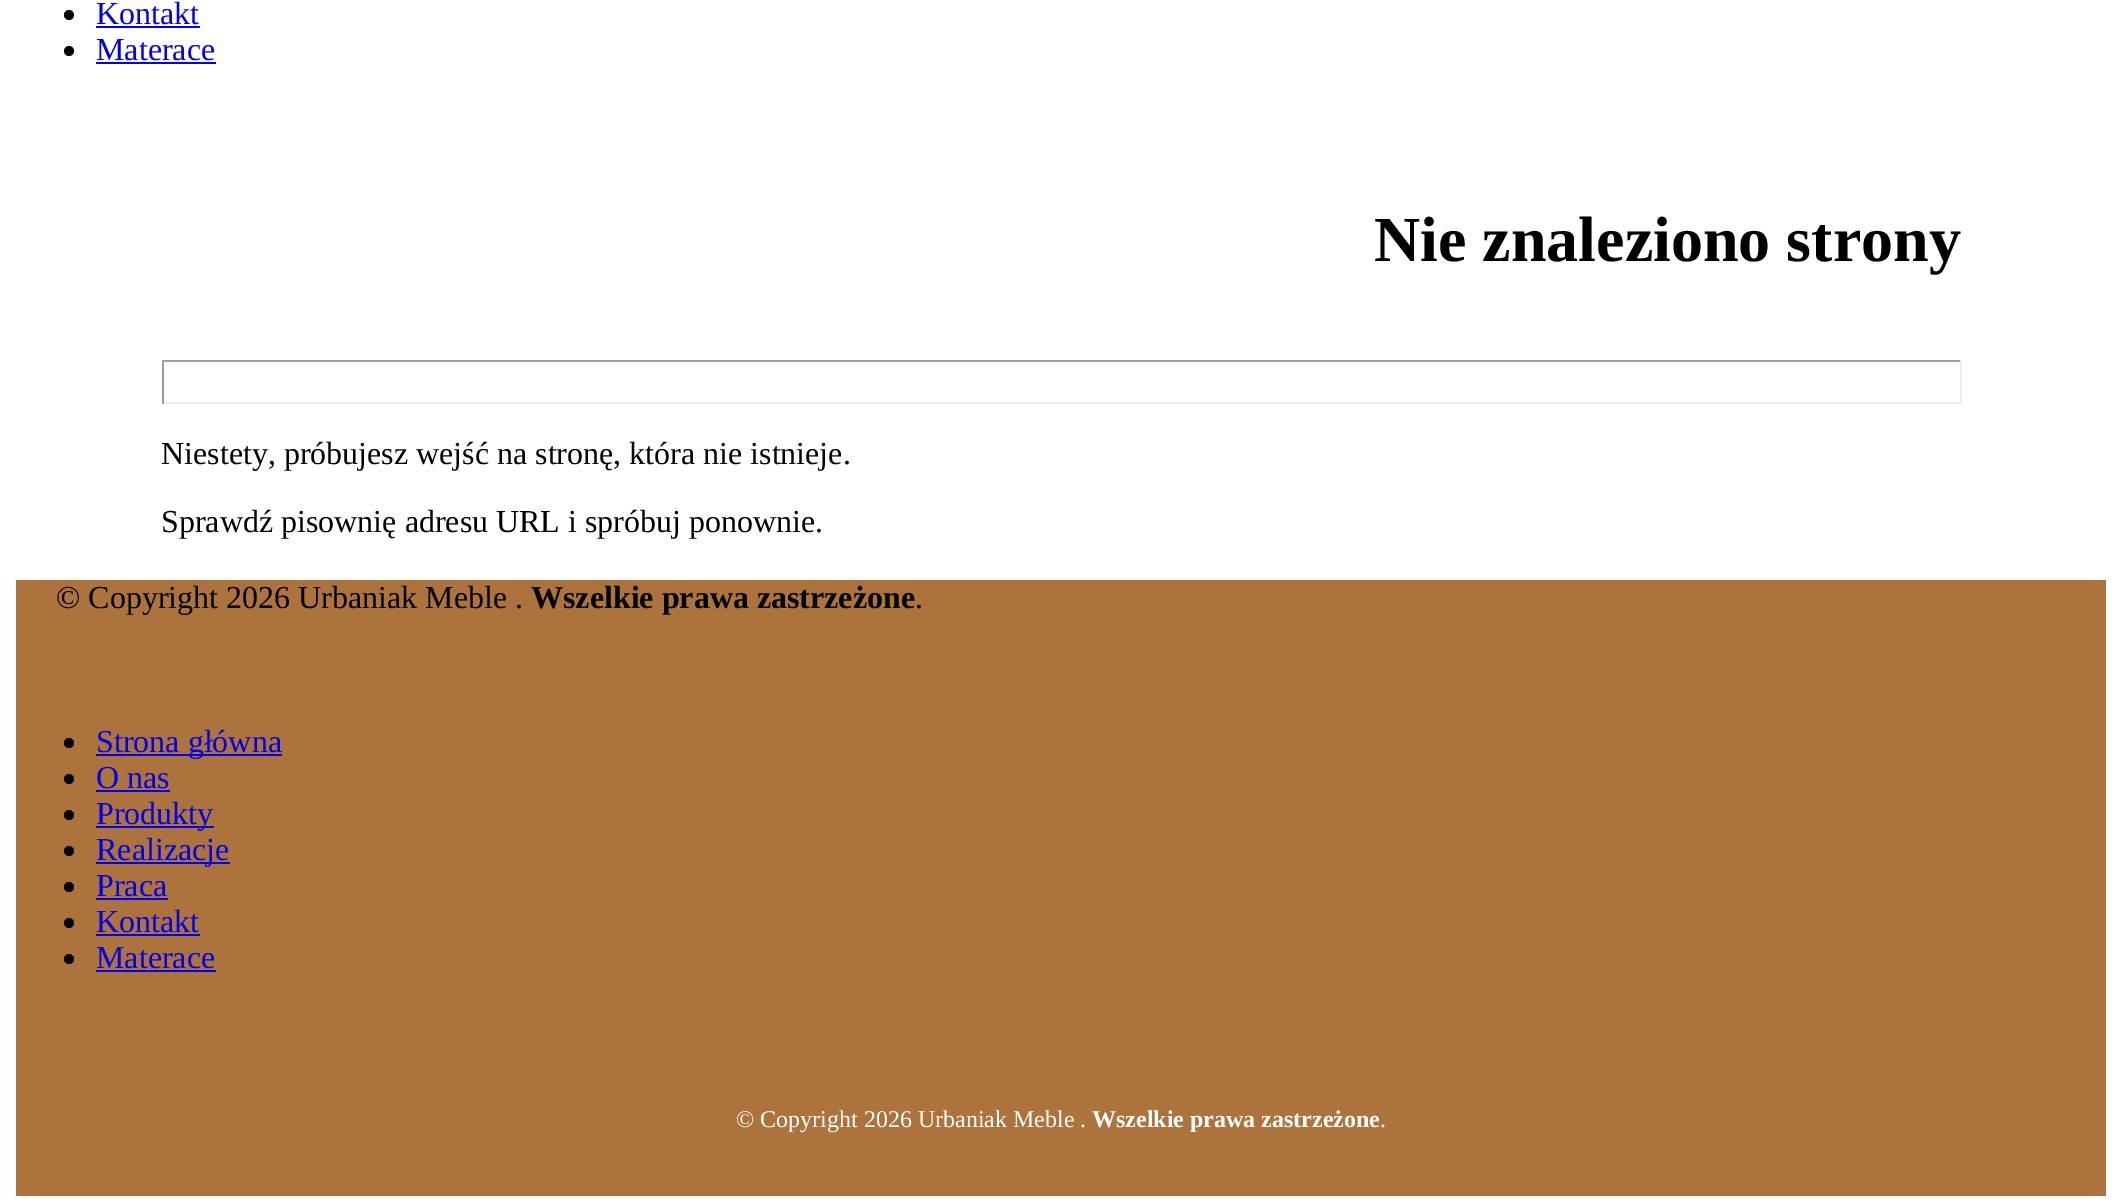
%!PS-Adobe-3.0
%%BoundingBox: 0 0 2121 1204
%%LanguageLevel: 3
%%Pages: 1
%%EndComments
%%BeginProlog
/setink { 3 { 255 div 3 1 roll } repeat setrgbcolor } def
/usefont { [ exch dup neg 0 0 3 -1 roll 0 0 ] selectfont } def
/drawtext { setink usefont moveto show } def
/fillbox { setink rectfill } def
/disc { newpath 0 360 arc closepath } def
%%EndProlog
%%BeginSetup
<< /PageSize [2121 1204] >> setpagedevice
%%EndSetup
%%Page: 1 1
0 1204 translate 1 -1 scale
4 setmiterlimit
0 0 2121 1204 255 255 255 fillbox
0 0 0 setink
69 15 5 disc fill
(Kontakt) 96 24 /LiberationSerif-Regular 32 0 0 238 drawtext
96 26 104 2 0 0 238 fillbox
0 0 0 setink
69 51 5 disc fill
(Materace) 96 60 /LiberationSerif-Regular 32 0 0 238 drawtext
96 62 120 2 0 0 238 fillbox
(Nie znaleziono strony) 1374 261 /LiberationSerif-Bold 64 0 0 0 drawtext
162 360 1800 2 159 159 159 fillbox
1960 360 2 44 238 238 238 fillbox
162 402 1800 2 238 238 238 fillbox
162 360 2 44 159 159 159 fillbox
(Niestety, próbujesz wejść na stronę, która nie istnieje.) 161 464 /LiberationSerif-Regular 32 0 0 0 drawtext
(Sprawdź pisownię adresu URL i spróbuj ponownie.) 161 532 /LiberationSerif-Regular 32 0 0 0 drawtext
16 580 2090 616 173 115 60 fillbox
(© Copyright 2026 Urbaniak Meble .) 56 608 /LiberationSerif-Regular 32 0 0 0 drawtext
(Wszelkie prawa zastrzeżone) 531 608 /LiberationSerif-Bold 32 0 0 0 drawtext
(.) 915 608 /LiberationSerif-Regular 32 0 0 0 drawtext
69 743 5 disc fill
96 754 186 2 0 0 238 fillbox
(Strona główna) 96 752 /LiberationSerif-Regular 32 0 0 238 drawtext
0 0 0 setink
69 779 5 disc fill
(O nas) 96 788 /LiberationSerif-Regular 32 0 0 238 drawtext
96 790 74 2 0 0 238 fillbox
0 0 0 setink
69 815 5 disc fill
96 826 118 2 0 0 238 fillbox
(Produkty) 96 824 /LiberationSerif-Regular 32 0 0 238 drawtext
0 0 0 setink
69 851 5 disc fill
96 862 134 2 0 0 238 fillbox
(Realizacje) 96 860 /LiberationSerif-Regular 32 0 0 238 drawtext
0 0 0 setink
69 887 5 disc fill
(Praca) 96 896 /LiberationSerif-Regular 32 0 0 238 drawtext
96 898 72 2 0 0 238 fillbox
0 0 0 setink
69 923 5 disc fill
(Kontakt) 96 932 /LiberationSerif-Regular 32 0 0 238 drawtext
96 934 104 2 0 0 238 fillbox
0 0 0 setink
69 959 5 disc fill
(Materace) 96 968 /LiberationSerif-Regular 32 0 0 238 drawtext
96 970 120 2 0 0 238 fillbox
(© Copyright 2026 Urbaniak Meble .) 736 1127 /LiberationSerif-Regular 24 255 255 255 drawtext
(Wszelkie prawa zastrzeżone) 1092 1127 /LiberationSerif-Bold 24 255 255 255 drawtext
(.) 1380 1127 /LiberationSerif-Regular 24 255 255 255 drawtext
showpage
%%EOF
